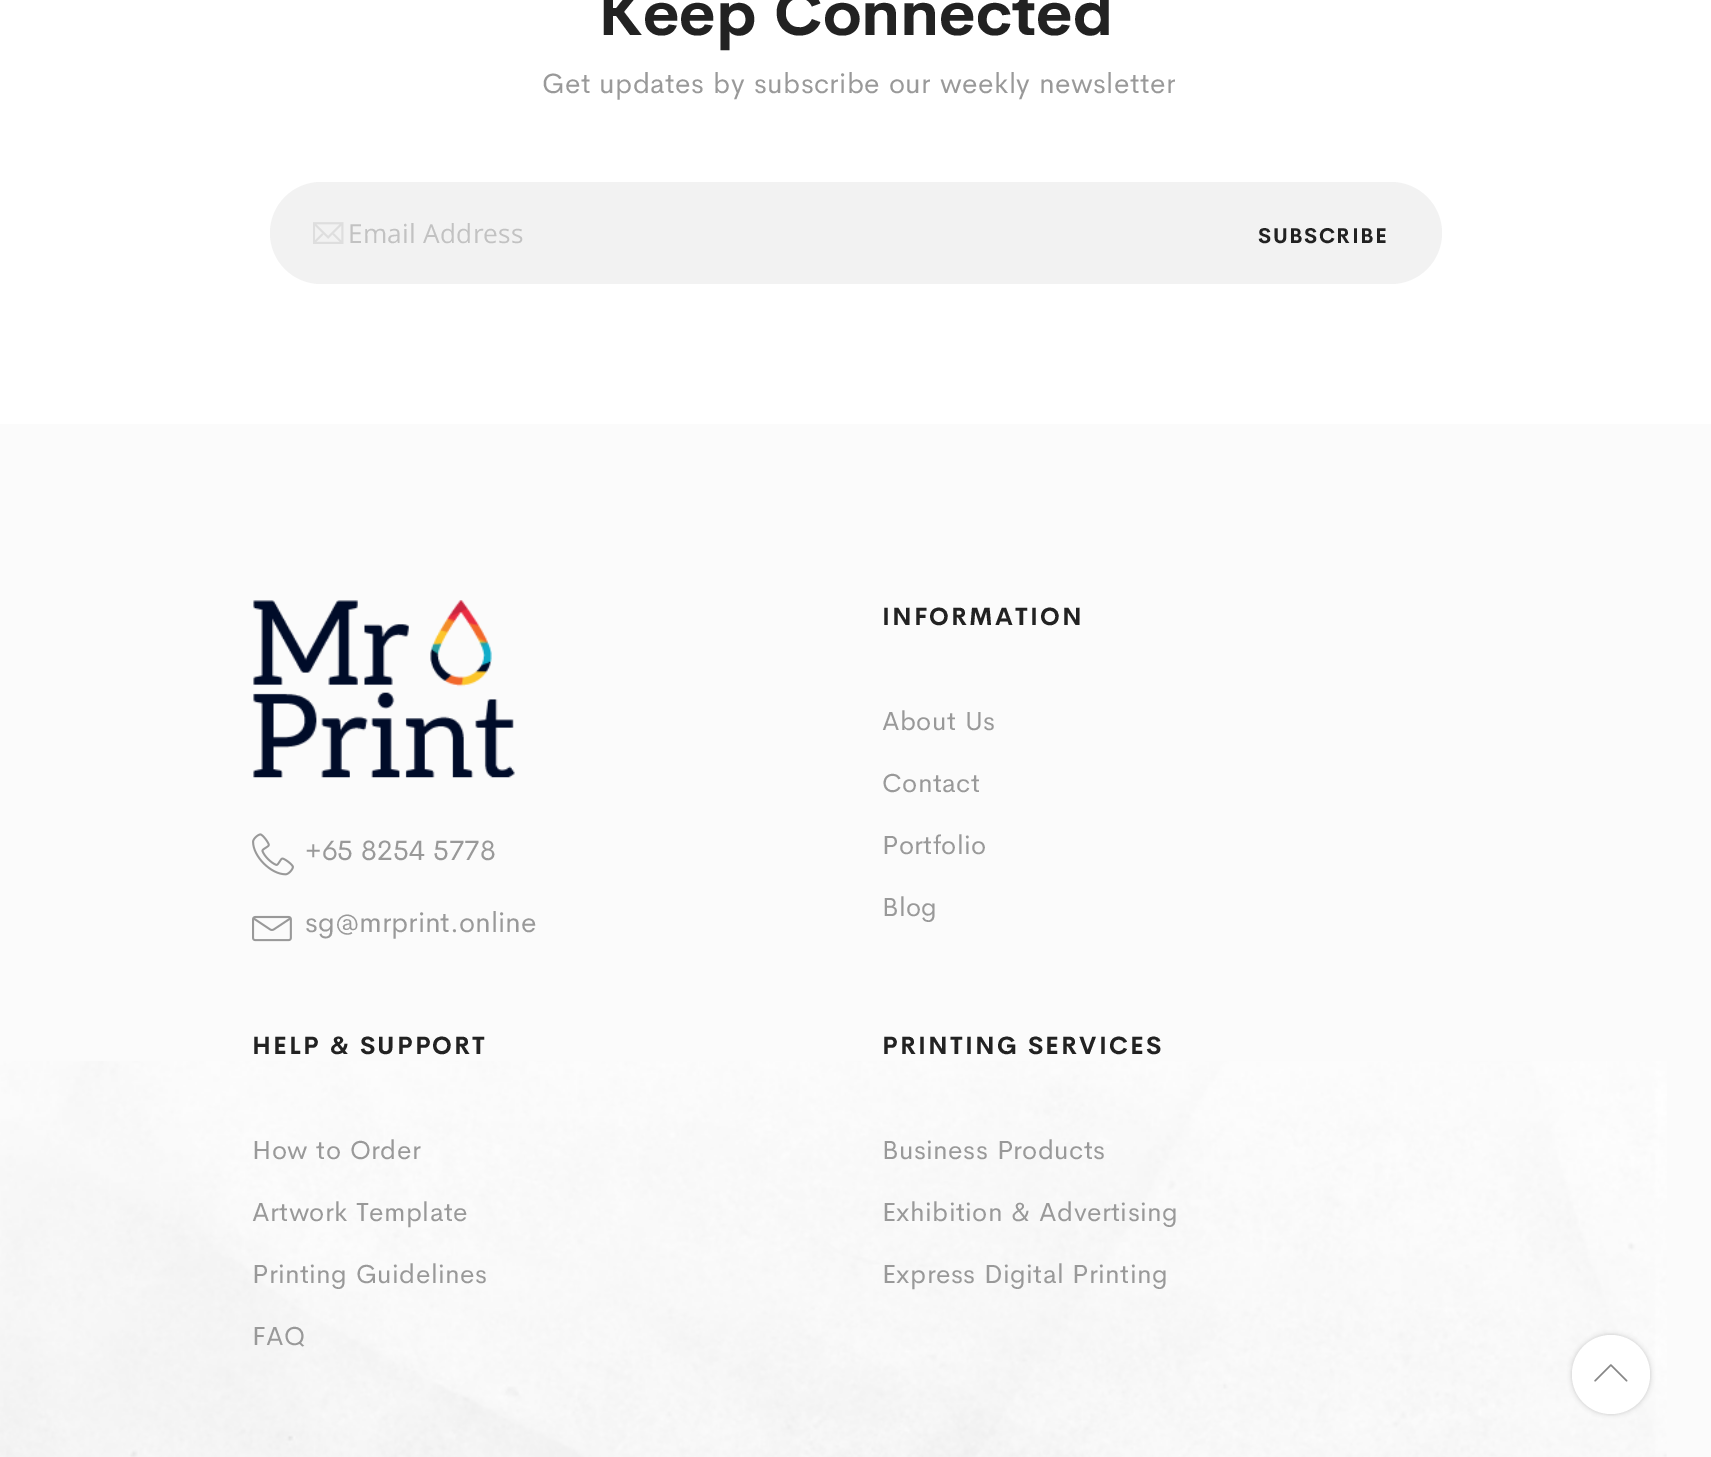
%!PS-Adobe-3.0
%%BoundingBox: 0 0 1711 1457
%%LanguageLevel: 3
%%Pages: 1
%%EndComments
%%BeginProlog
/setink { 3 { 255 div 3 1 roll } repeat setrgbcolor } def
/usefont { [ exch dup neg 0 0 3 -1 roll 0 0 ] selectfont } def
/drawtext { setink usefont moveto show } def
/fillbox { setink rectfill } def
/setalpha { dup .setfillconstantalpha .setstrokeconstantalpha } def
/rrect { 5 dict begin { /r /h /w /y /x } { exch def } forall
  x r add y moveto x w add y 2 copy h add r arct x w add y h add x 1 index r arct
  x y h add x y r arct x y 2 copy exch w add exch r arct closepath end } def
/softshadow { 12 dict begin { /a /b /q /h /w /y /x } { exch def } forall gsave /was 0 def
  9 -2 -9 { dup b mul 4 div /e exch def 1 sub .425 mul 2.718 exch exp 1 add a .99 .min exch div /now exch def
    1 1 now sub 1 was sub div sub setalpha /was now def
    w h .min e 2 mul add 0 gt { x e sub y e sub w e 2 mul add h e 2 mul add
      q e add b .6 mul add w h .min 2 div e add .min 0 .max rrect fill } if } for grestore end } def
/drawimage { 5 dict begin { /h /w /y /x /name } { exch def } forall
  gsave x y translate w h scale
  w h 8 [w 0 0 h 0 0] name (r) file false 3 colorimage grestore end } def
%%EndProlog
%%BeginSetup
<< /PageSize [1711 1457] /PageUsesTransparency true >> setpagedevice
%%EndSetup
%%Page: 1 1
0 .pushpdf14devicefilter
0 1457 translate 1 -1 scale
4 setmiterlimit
0 0 1711 1457 255 255 255 fillbox
(Keep Connected) 598 35 /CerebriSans-Bold 63 34 34 34 drawtext
/CerebriSans-Regular 28 usefont
153 153 153 setink
542 93 moveto 0.4 0 (Get updates by subscribe our weekly newsletter) ashow
242 242 242 setink
270 182 1172 102 51 rrect fill
(assets/img1.rgb) 313 222 31 22 drawimage
/OpenSans-Regular 26.25 usefont
194 194 194 setink
348 243 moveto 0.25 0 (Email Address) ashow
/CerebriSans-Bold 21 usefont
34 34 34 setink
1258 243 moveto 1.5 0 (SUBSCRIBE) ashow
0 424 1711 1033 251 251 251 fillbox
(assets/img2.rgb) 0 1061 1667 396 drawimage
(assets/img3.rgb) 253 600 262 178 drawimage
(assets/img4.rgb) 252 833 42 43 drawimage
(+65 8254 5778) 305 860 /CerebriSans-Regular 28 153 153 153 drawtext
(assets/img5.rgb) 252 915 40 27 drawimage
(sg@mrprint.online) 305 932 /CerebriSans-Regular 28 153 153 153 drawtext
/CerebriSans-Bold 24.5 usefont
34 34 34 setink
882 625 moveto 2.1 0 (INFORMATION) ashow
/CerebriSans-Regular 26.25 usefont
153 153 153 setink
882 730 moveto 0.4 0 (About Us) ashow
882 792 moveto 0.4 0 (Contact) ashow
882 854 moveto 0.4 0 (Portfolio) ashow
882 916 moveto 0.4 0 (Blog) ashow
/CerebriSans-Bold 24.5 usefont
34 34 34 setink
252 1054 moveto 2.1 0 (HELP & SUPPORT) ashow
/CerebriSans-Regular 26.25 usefont
153 153 153 setink
252 1159 moveto 0.4 0 (How to Order) ashow
252 1221 moveto 0.4 0 (Artwork Template) ashow
252 1283 moveto 0.4 0 (Printing Guidelines) ashow
252 1345 moveto 0.4 0 (FAQ) ashow
/CerebriSans-Bold 24.5 usefont
34 34 34 setink
882 1054 moveto 2.1 0 (PRINTING SERVICES) ashow
/CerebriSans-Regular 26.25 usefont
153 153 153 setink
882 1159 moveto 0.4 0 (Business Products) ashow
882 1221 moveto 0.4 0 (Exhibition & Advertising) ashow
882 1283 moveto 0.4 0 (Express Digital Printing) ashow
0 0 0 setink
1572 1335 78 79 39 2.5 0.2 softshadow
255 255 255 setink
1572 1335 78 79 39 rrect fill
(assets/img6.rgb) 1594 1364 34 18 drawimage
.poppdf14devicefilter showpage
%%EOF
